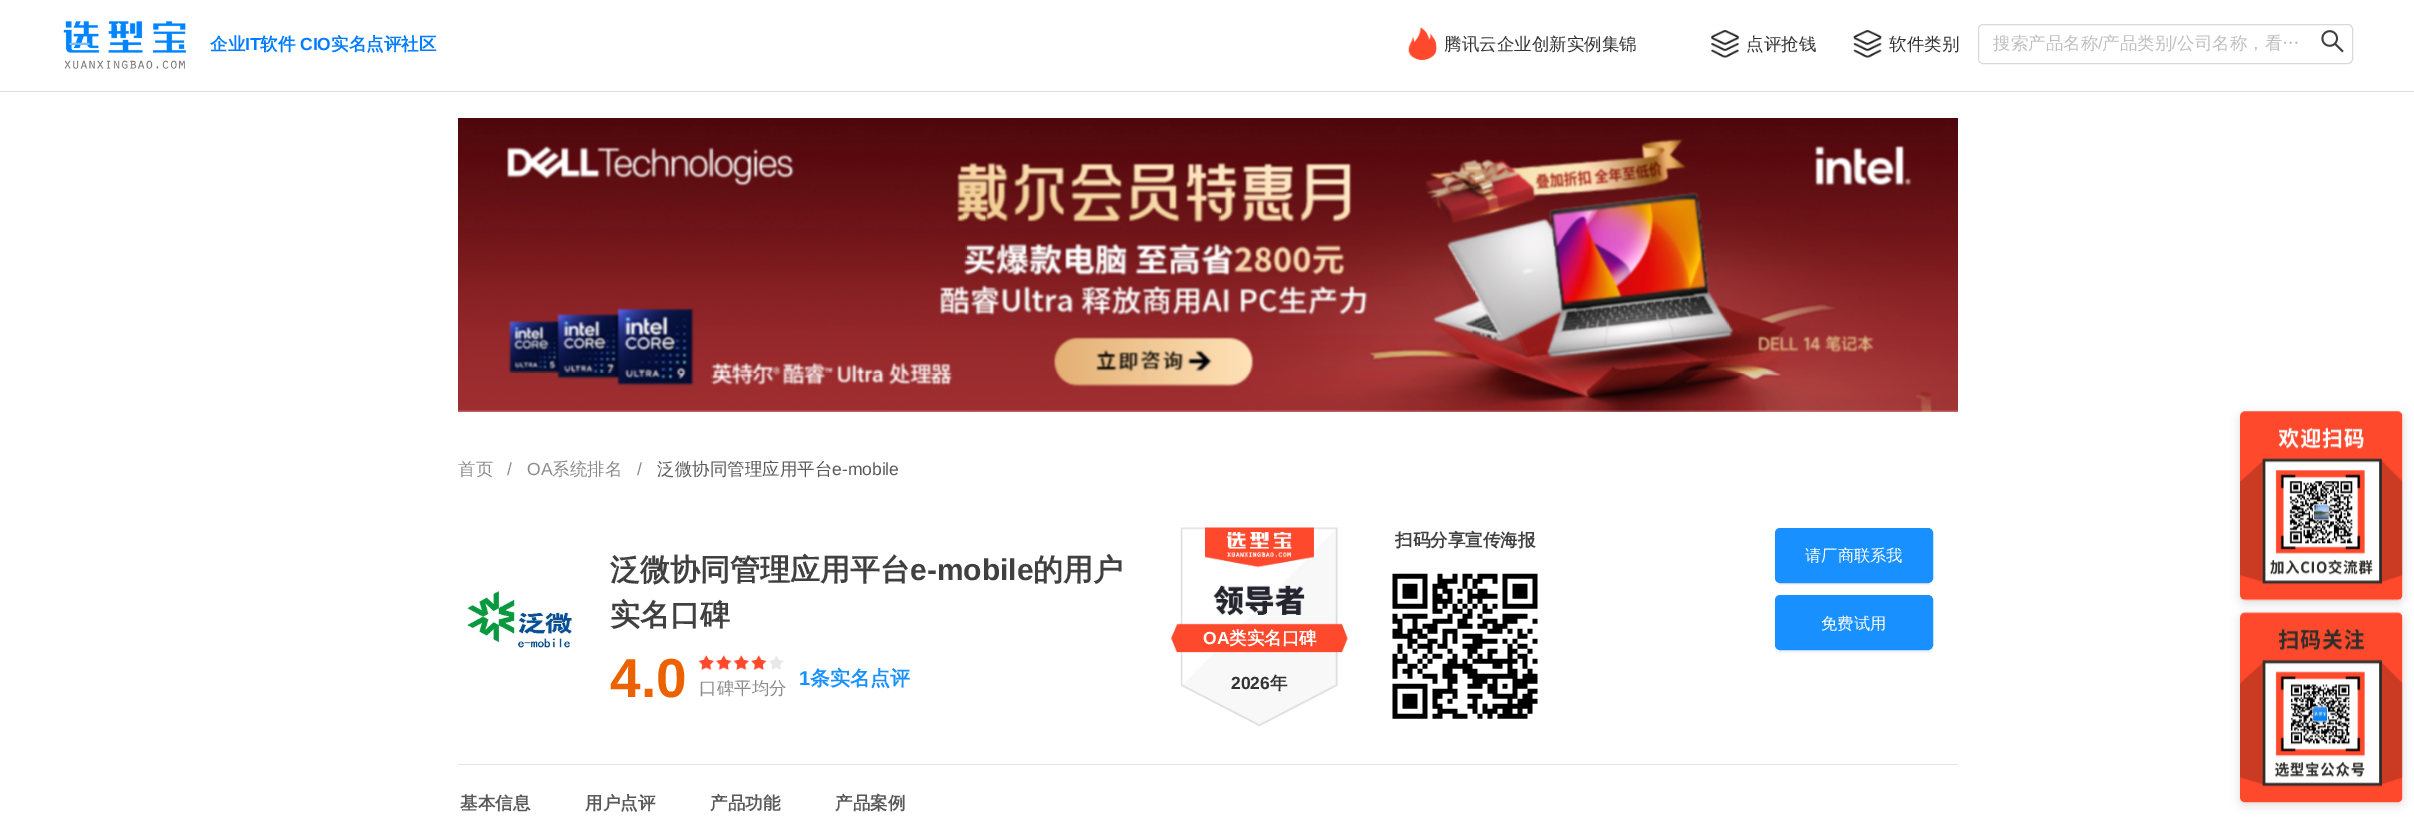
%!PS-Adobe-3.0
%%BoundingBox: 0 0 2414 840
%%LanguageLevel: 3
%%Pages: 1
%%EndComments
%%BeginProlog
/setink { 3 { 255 div 3 1 roll } repeat setrgbcolor } def
/usefont { [ exch dup neg 0 0 3 -1 roll 0 0 ] selectfont } def
/drawtext { setink usefont moveto show } def
/fillbox { setink rectfill } def
/setalpha { dup .setfillconstantalpha .setstrokeconstantalpha } def
/rrect { 5 dict begin { /r /h /w /y /x } { exch def } forall
  x r add y moveto x w add y 2 copy h add r arct x w add y h add x 1 index r arct
  x y h add x y r arct x y 2 copy exch w add exch r arct closepath end } def
/softshadow { 12 dict begin { /a /b /q /h /w /y /x } { exch def } forall gsave /was 0 def
  9 -2 -9 { dup b mul 4 div /e exch def 1 sub .425 mul 2.718 exch exp 1 add a .99 .min exch div /now exch def
    1 1 now sub 1 was sub div sub setalpha /was now def
    w h .min e 2 mul add 0 gt { x e sub y e sub w e 2 mul add h e 2 mul add
      q e add b .6 mul add w h .min 2 div e add .min 0 .max rrect fill } if } for grestore end } def
/drawimage { 5 dict begin { /h /w /y /x /name } { exch def } forall
  gsave x y translate w h scale
  w h 8 [w 0 0 h 0 0] name (r) file false 3 colorimage grestore end } def
%%EndProlog
%%BeginSetup
<< /PageSize [2414 840] /PageUsesTransparency true >> setpagedevice
%%EndSetup
%%Page: 1 1
0 .pushpdf14devicefilter
0 840 translate 1 -1 scale
4 setmiterlimit
0 0 2414 840 255 255 255 fillbox
(assets/img1.rgb) 63 21 124 48 drawimage
(_) 70 38 /LiberationSans-Regular 35 121 190 255 drawtext
0 91 2414 1 221 221 221 fillbox
(企业) 210 50 /WenQuanYiZenHei-Bold 17.5 0 125 255 drawtext
(IT) 245 50 /LiberationSans-Bold 17.5 0 125 255 drawtext
(软件) 260 50 /WenQuanYiZenHei-Bold 17.5 0 125 255 drawtext
(CIO) 300 50 /LiberationSans-Bold 17.5 0 125 255 drawtext
(实名点评社区) 331 50 /WenQuanYiZenHei-Bold 17.5 0 125 255 drawtext
(assets/img2.rgb) 1408 27 29 33 drawimage
(腾讯云企业创新实例集锦) 1444 50 /WenQuanYiZenHei-Medium 17.5 51 51 51 drawtext
(assets/img3.rgb) 1711 30 28 28 drawimage
(点评抢钱) 1746 50 /WenQuanYiZenHei-Medium 17.5 51 51 51 drawtext
(assets/img4.rgb) 1853 30 29 28 drawimage
(软件类别) 1889 50 /WenQuanYiZenHei-Medium 17.5 51 51 51 drawtext
217 217 217 setink
1978.5 24.5 374 39 4.5 rrect stroke
(搜索产品名称) 1993 49 /WenQuanYiZenHei-Medium 17.5 191 191 191 drawtext
(/) 2098 49 /LiberationSans-Regular 17.5 191 191 191 drawtext
(产品类别) 2102 49 /WenQuanYiZenHei-Medium 17.5 191 191 191 drawtext
(/) 2172 49 /LiberationSans-Regular 17.5 191 191 191 drawtext
(公司名称，看…) 2177 49 /WenQuanYiZenHei-Medium 17.5 191 191 191 drawtext
(assets/img5.rgb) 2321 30 23 23 drawimage
0 0 0 setink
2240 414 163 189 5 5 0.14 softshadow
(assets/img6.rgb) 2240 411 163 190 drawimage
2240 615 163 190 5 5 0.14 softshadow
(assets/img7.rgb) 2240 612 163 191 drawimage
(assets/img8.rgb) 458 118 1500 294 drawimage
(首页) 458 475 /WenQuanYiZenHei-Medium 17.5 140 140 140 drawtext
(/) 507 475 /LiberationSans-Regular 17.5 140 140 140 drawtext
(OA) 527 475 /LiberationSans-Regular 17.5 140 140 140 drawtext
(系统排名) 552 475 /WenQuanYiZenHei-Medium 17.5 140 140 140 drawtext
(/) 637 475 /LiberationSans-Regular 17.5 140 140 140 drawtext
(泛微协同管理应用平台) 657 475 /WenQuanYiZenHei-Medium 17.5 89 89 89 drawtext
(e-mobile) 832 475 /LiberationSans-Regular 17.5 89 89 89 drawtext
458 764 1500 1 229 229 229 fillbox
(assets/img9.rgb) 467 589 106 67 drawimage
(泛微协同管理应用平台) 610 580 /WenQuanYiZenHei-Bold 30 64 64 64 drawtext
(e-mobile) 910 580 /LiberationSans-Bold 30 64 64 64 drawtext
(的用户) 1033 580 /WenQuanYiZenHei-Bold 30 64 64 64 drawtext
(实名口碑) 610 625 /WenQuanYiZenHei-Bold 30 64 64 64 drawtext
(4.0) 610 697 /LiberationSans-Bold 55 236 98 0 drawtext
(assets/img10.rgb) 698 655 16 15 drawimage
(assets/img11.rgb) 716 655 16 15 drawimage
(assets/img10.rgb) 733 655 16 15 drawimage
(assets/img11.rgb) 751 655 16 15 drawimage
(assets/img12.rgb) 769 656 15 14 drawimage
(口碑平均分) 699 694 /WenQuanYiZenHei-Medium 17.5 140 140 140 drawtext
(1) 799 685 /LiberationSans-Bold 20 24 144 255 drawtext
(条实名点评) 810 685 /WenQuanYiZenHei-Bold 20 24 144 255 drawtext
(扫码分享宣传海报) 1395 546 /WenQuanYiZenHei-Bold 17.5 64 64 64 drawtext
(assets/img13.rgb) 1392 573 146 146 drawimage
(assets/img14.rgb) 1171 527 177 200 drawimage
(OA) 1203 644 /LiberationSans-Bold 17.5 255 255 255 drawtext
(类实名口碑) 1229 644 /WenQuanYiZenHei-Bold 17.5 255 255 255 drawtext
(2026) 1231 689 /LiberationSans-Bold 17.5 51 51 51 drawtext
(年) 1270 689 /WenQuanYiZenHei-Bold 17.5 51 51 51 drawtext
244 244 244 setink
1775 578 moveto 1775 580 lineto 1775 583 1777 585 1780 585 curveto 1928 585 lineto 1931 585 1933 583 1933 580 curveto 1933 535 lineto 1932 533 lineto 1932 578 lineto 1932 580 1930 582 1928 582 curveto 1780 582 lineto 1777 582 1775 580 1775 578 curveto closepath fill
24 144 255 setink
1775.5 528.5 157 54 4.5 rrect gsave fill grestore
stroke
(请厂商联系我) 1805 561 /WenQuanYiZenHei-Medium 16.25 255 255 255 drawtext
244 244 244 setink
1775 645 moveto 1775 648 lineto 1775 651 1777 653 1780 653 curveto 1928 653 lineto 1931 653 1933 651 1933 648 curveto 1933 603 lineto 1932 601 lineto 1932 645 lineto 1932 648 1930 650 1928 650 curveto 1780 650 lineto 1777 650 1775 648 1775 645 curveto closepath fill
24 144 255 setink
1775.5 595.5 157 54 4.5 rrect gsave fill grestore
stroke
(免费试用) 1821 629 /WenQuanYiZenHei-Medium 16.25 255 255 255 drawtext
(基本信息) 460 809 /WenQuanYiZenHei-Bold 17.5 89 89 89 drawtext
(用户点评) 585 809 /WenQuanYiZenHei-Bold 17.5 89 89 89 drawtext
(产品功能) 710 809 /WenQuanYiZenHei-Bold 17.5 89 89 89 drawtext
(产品案例) 835 809 /WenQuanYiZenHei-Bold 17.5 89 89 89 drawtext
.poppdf14devicefilter showpage
%%EOF
